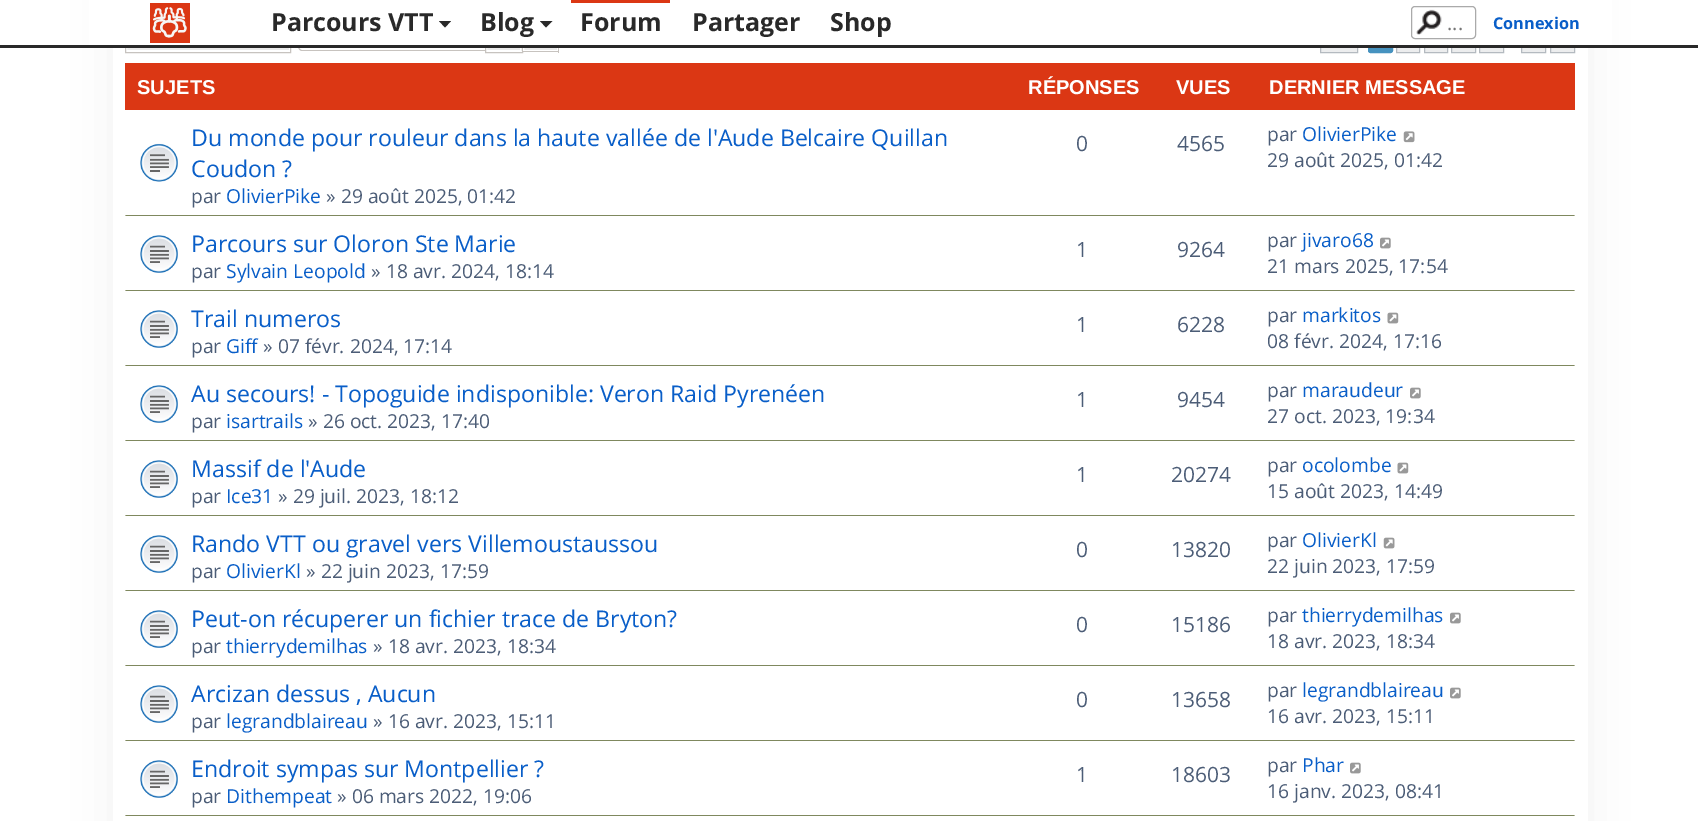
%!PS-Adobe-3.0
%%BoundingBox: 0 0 1698 821
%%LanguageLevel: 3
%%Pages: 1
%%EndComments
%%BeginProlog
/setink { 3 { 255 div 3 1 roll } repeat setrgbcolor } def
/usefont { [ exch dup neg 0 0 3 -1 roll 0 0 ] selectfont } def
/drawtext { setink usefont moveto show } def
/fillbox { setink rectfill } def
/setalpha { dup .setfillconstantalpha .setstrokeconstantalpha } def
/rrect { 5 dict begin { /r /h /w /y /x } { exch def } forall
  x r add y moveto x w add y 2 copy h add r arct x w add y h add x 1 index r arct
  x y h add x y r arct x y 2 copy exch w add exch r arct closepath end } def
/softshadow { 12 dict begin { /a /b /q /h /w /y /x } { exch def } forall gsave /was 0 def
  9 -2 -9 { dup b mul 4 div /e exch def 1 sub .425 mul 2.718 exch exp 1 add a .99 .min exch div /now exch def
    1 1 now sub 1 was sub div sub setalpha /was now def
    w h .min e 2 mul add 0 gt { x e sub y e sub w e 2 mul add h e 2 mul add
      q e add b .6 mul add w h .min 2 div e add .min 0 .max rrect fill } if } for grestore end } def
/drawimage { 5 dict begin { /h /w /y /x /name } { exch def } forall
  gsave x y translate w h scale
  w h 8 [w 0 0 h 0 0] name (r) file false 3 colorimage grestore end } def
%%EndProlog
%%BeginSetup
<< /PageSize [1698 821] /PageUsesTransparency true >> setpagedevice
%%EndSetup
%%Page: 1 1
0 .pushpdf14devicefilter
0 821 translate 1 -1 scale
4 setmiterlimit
0 0 1698 821 255 255 255 fillbox
240 240 240 setink
113 -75 1475 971 0 25 1 softshadow
113 48 1475 773 255 255 255 fillbox
gsave 127 48 moveto 289 48 lineto 289 50 lineto 127 50 lineto closepath clip newpath
<< /ShadingType 2 /ColorSpace /DeviceRGB /Coords [208 22 208 51] /Extend [true true] /Function << /FunctionType 2 /Domain [0 1] /C0 [1 1 1] /C1 [0.914 0.914 0.914] /N 1 >> >> shfill grestore
126.5 23.5 163 27 rectstroke
199 195 191 setink
125.5 21.5 165 31 rectstroke
302 21 moveto 485 21 lineto 485 51 lineto 302 51 lineto 300 51 298 49 298 46 curveto 298 26 lineto 298 23 300 21 302 21 curveto closepath 302 22 moveto 485 22 lineto 485 50 lineto 302 50 lineto 300 50 299 48 299 46 curveto 299 26 lineto 299 24 300 22 302 22 curveto closepath eofill
gsave 487 48 moveto 522 48 lineto 522 51 lineto 487 51 lineto closepath clip newpath
<< /ShadingType 2 /ColorSpace /DeviceRGB /Coords [504 23 504 51] /Extend [true true] /Function << /FunctionType 2 /Domain [0 1] /C0 [1 1 1] /C1 [0.914 0.914 0.914] /N 1 >> >> shfill grestore
255 255 255 setink
486.5 23.5 34 27 rectstroke
199 195 191 setink
485.5 21.5 37 31 rectstroke
gsave 524 48 moveto 557 48 lineto 557 50 lineto 524 50 lineto closepath clip newpath
<< /ShadingType 2 /ColorSpace /DeviceRGB /Coords [540 23 540 51] /Extend [true true] /Function << /FunctionType 2 /Domain [0 1] /C0 [1 1 1] /C1 [0.914 0.914 0.914] /N 1 >> >> shfill grestore
255 255 255 setink
523.5 23.5 34 27 rectstroke
1321 48 36 4 236 237 238 fillbox
180 186 192 setink
1320.5 21.5 37 31 rectstroke
70 146 191 setink
1368.5 21.5 24 31 2 rrect gsave fill grestore
stroke
1397 48 22 4 236 237 238 fillbox
180 186 192 setink
1396.5 21.5 23 31 rectstroke
1425 48 22 4 236 237 238 fillbox
180 186 192 setink
1424.5 21.5 23 31 rectstroke
1452 48 23 4 236 237 238 fillbox
180 186 192 setink
1451.5 21.5 24 31 rectstroke
1480 48 23 4 236 237 238 fillbox
180 186 192 setink
1479.5 21.5 24 31 rectstroke
1522 48 23 4 236 237 238 fillbox
180 186 192 setink
1521.5 21.5 24 31 rectstroke
1551 48 23 4 236 237 238 fillbox
180 186 192 setink
1550.5 21.5 24 31 rectstroke
89 0 1523 45 255 255 255 fillbox
0 45 1698 3 41 41 41 fillbox
(assets/img1.rgb) 150 3 40 40 drawimage
(Parcours VTT) 271 31 /OpenSans-Bold 25 41 41 41 drawtext
439 21 moveto 451 21 lineto 445 27.5 lineto closepath fill
(Blog) 480 31 /OpenSans-Bold 25 41 41 41 drawtext
540 21 moveto 552.5 21 lineto 546 27.5 lineto closepath fill
571 0 99 3 219 55 20 fillbox
(Forum) 580 31 /OpenSans-Bold 25 41 41 41 drawtext
(Partager) 692 31 /OpenSans-Bold 25 41 41 41 drawtext
(Shop) 830 31 /OpenSans-Bold 25 41 41 41 drawtext
(assets/img2.rgb) 1416 9 26 26 drawimage
170 170 170 setink
1411.5 6.5 64 32 3.5 rrect stroke
(...) 1447 30 /OpenSans-Regular 20 117 117 117 drawtext
(Connexion) 1493 29 /OpenSans-Bold 16.25 9 94 200 drawtext
558 48 1 5 199 195 191 fillbox
523 51 36 1 199 195 191 fillbox
125 63 1450 47 219 55 20 fillbox
(SUJETS) 137 94 /LiberationSans-Bold 20.1 255 255 255 drawtext
(RÉPONSES) 1028 94 /LiberationSans-Bold 20.1 255 255 255 drawtext
(VUES) 1176 94 /LiberationSans-Bold 20.1 255 255 255 drawtext
(DERNIER MESSAGE) 1269 94 /LiberationSans-Bold 20.1 255 255 255 drawtext
127 136 94 setink
1575 216 moveto 125 216 lineto 126 215 lineto 1574 215 lineto closepath fill
(assets/img3.rgb) 140 143 38 39 drawimage
(Du monde pour rouleur dans la haute vallée de l'Aude Belcaire Quillan) 191 146 /OpenSans-Regular 23.1 9 94 200 drawtext
(Coudon ?) 191 177 /OpenSans-Regular 23.1 9 94 200 drawtext
(par) 191 203 /OpenSans-Regular 19.25 76 93 119 drawtext
(OlivierPike) 226 203 /OpenSans-Regular 19.25 9 94 200 drawtext
(» 29 août 2025, 01:42) 326 203 /OpenSans-Regular 19.25 76 93 119 drawtext
(0) 1076 151 /OpenSans-Regular 21 76 93 119 drawtext
(4565) 1177 151 /OpenSans-Regular 21 76 93 119 drawtext
(par) 1267 141 /OpenSans-Regular 19.25 76 93 119 drawtext
(OlivierPike) 1302 141 /OpenSans-Regular 19.25 9 94 200 drawtext
(assets/img4.rgb) 1403 131 12 12 drawimage
(29 août 2025, 01:42) 1267 167 /OpenSans-Regular 19.25 76 93 119 drawtext
127 136 94 setink
1575 291 moveto 125 291 lineto 126 290 lineto 1574 290 lineto closepath fill
(assets/img5.rgb) 140 235 38 38 drawimage
(Parcours sur Oloron Ste Marie) 191 252 /OpenSans-Regular 23.1 9 94 200 drawtext
(par) 191 278 /OpenSans-Regular 19.25 76 93 119 drawtext
(Sylvain Leopold) 226 278 /OpenSans-Regular 19.25 9 94 200 drawtext
(» 18 avr. 2024, 18:14) 371 278 /OpenSans-Regular 19.25 76 93 119 drawtext
(1) 1076 257 /OpenSans-Regular 21 76 93 119 drawtext
(9264) 1177 257 /OpenSans-Regular 21 76 93 119 drawtext
(par) 1267 247 /OpenSans-Regular 19.25 76 93 119 drawtext
(jivaro68) 1302 247 /OpenSans-Regular 19.25 9 94 200 drawtext
(assets/img6.rgb) 1380 237 11 12 drawimage
(21 mars 2025, 17:54) 1267 273 /OpenSans-Regular 19.25 76 93 119 drawtext
127 136 94 setink
1575 366 moveto 125 366 lineto 126 365 lineto 1574 365 lineto closepath fill
(assets/img5.rgb) 140 310 38 38 drawimage
(Trail numeros) 191 327 /OpenSans-Regular 23.1 9 94 200 drawtext
(par) 191 353 /OpenSans-Regular 19.25 76 93 119 drawtext
(Giff) 226 353 /OpenSans-Regular 19.25 9 94 200 drawtext
(» 07 févr. 2024, 17:14) 263 353 /OpenSans-Regular 19.25 76 93 119 drawtext
(1) 1076 332 /OpenSans-Regular 21 76 93 119 drawtext
(6228) 1177 332 /OpenSans-Regular 21 76 93 119 drawtext
(par) 1267 322 /OpenSans-Regular 19.25 76 93 119 drawtext
(markitos) 1302 322 /OpenSans-Regular 19.25 9 94 200 drawtext
(assets/img7.rgb) 1387 312 12 12 drawimage
(08 févr. 2024, 17:16) 1267 348 /OpenSans-Regular 19.25 76 93 119 drawtext
127 136 94 setink
1575 441 moveto 125 441 lineto 126 440 lineto 1574 440 lineto closepath fill
(assets/img5.rgb) 140 385 38 38 drawimage
(Au secours! - Topoguide indisponible: Veron Raid Pyrenéen) 191 402 /OpenSans-Regular 23.1 9 94 200 drawtext
(par) 191 428 /OpenSans-Regular 19.25 76 93 119 drawtext
(isartrails) 226 428 /OpenSans-Regular 19.25 9 94 200 drawtext
(» 26 oct. 2023, 17:40) 308 428 /OpenSans-Regular 19.25 76 93 119 drawtext
(1) 1076 407 /OpenSans-Regular 21 76 93 119 drawtext
(9454) 1177 407 /OpenSans-Regular 21 76 93 119 drawtext
(par) 1267 397 /OpenSans-Regular 19.25 76 93 119 drawtext
(maraudeur) 1302 397 /OpenSans-Regular 19.25 9 94 200 drawtext
(assets/img6.rgb) 1410 387 11 12 drawimage
(27 oct. 2023, 19:34) 1267 423 /OpenSans-Regular 19.25 76 93 119 drawtext
127 136 94 setink
1575 516 moveto 125 516 lineto 126 515 lineto 1574 515 lineto closepath fill
(assets/img5.rgb) 140 460 38 38 drawimage
(Massif de l'Aude) 191 477 /OpenSans-Regular 23.1 9 94 200 drawtext
(par) 191 503 /OpenSans-Regular 19.25 76 93 119 drawtext
(Ice31) 226 503 /OpenSans-Regular 19.25 9 94 200 drawtext
(» 29 juil. 2023, 18:12) 278 503 /OpenSans-Regular 19.25 76 93 119 drawtext
(1) 1076 482 /OpenSans-Regular 21 76 93 119 drawtext
(20274) 1171 482 /OpenSans-Regular 21 76 93 119 drawtext
(par) 1267 472 /OpenSans-Regular 19.25 76 93 119 drawtext
(ocolombe) 1302 472 /OpenSans-Regular 19.25 9 94 200 drawtext
(assets/img7.rgb) 1397 462 12 12 drawimage
(15 août 2023, 14:49) 1267 498 /OpenSans-Regular 19.25 76 93 119 drawtext
127 136 94 setink
1575 591 moveto 125 591 lineto 126 590 lineto 1574 590 lineto closepath fill
(assets/img5.rgb) 140 535 38 38 drawimage
(Rando VTT ou gravel vers Villemoustaussou) 191 552 /OpenSans-Regular 23.1 9 94 200 drawtext
(par) 191 578 /OpenSans-Regular 19.25 76 93 119 drawtext
(OlivierKl) 226 578 /OpenSans-Regular 19.25 9 94 200 drawtext
(» 22 juin 2023, 17:59) 306 578 /OpenSans-Regular 19.25 76 93 119 drawtext
(0) 1076 557 /OpenSans-Regular 21 76 93 119 drawtext
(13820) 1171 557 /OpenSans-Regular 21 76 93 119 drawtext
(par) 1267 547 /OpenSans-Regular 19.25 76 93 119 drawtext
(OlivierKl) 1302 547 /OpenSans-Regular 19.25 9 94 200 drawtext
(assets/img8.rgb) 1383 537 12 12 drawimage
(22 juin 2023, 17:59) 1267 573 /OpenSans-Regular 19.25 76 93 119 drawtext
127 136 94 setink
1575 666 moveto 125 666 lineto 126 665 lineto 1574 665 lineto closepath fill
(assets/img9.rgb) 140 610 38 38 drawimage
(Peut-on récuperer un fichier trace de Bryton?) 191 627 /OpenSans-Regular 23.1 9 94 200 drawtext
(par) 191 653 /OpenSans-Regular 19.25 76 93 119 drawtext
(thierrydemilhas) 226 653 /OpenSans-Regular 19.25 9 94 200 drawtext
(» 18 avr. 2023, 18:34) 373 653 /OpenSans-Regular 19.25 76 93 119 drawtext
(0) 1076 632 /OpenSans-Regular 21 76 93 119 drawtext
(15186) 1171 632 /OpenSans-Regular 21 76 93 119 drawtext
(par) 1267 622 /OpenSans-Regular 19.25 76 93 119 drawtext
(thierrydemilhas) 1302 622 /OpenSans-Regular 19.25 9 94 200 drawtext
(assets/img6.rgb) 1450 612 11 12 drawimage
(18 avr. 2023, 18:34) 1267 648 /OpenSans-Regular 19.25 76 93 119 drawtext
127 136 94 setink
1575 741 moveto 125 741 lineto 126 740 lineto 1574 740 lineto closepath fill
(assets/img5.rgb) 140 685 38 38 drawimage
(Arcizan dessus , Aucun) 191 702 /OpenSans-Regular 23.1 9 94 200 drawtext
(par) 191 728 /OpenSans-Regular 19.25 76 93 119 drawtext
(legrandblaireau) 226 728 /OpenSans-Regular 19.25 9 94 200 drawtext
(» 16 avr. 2023, 15:11) 373 728 /OpenSans-Regular 19.25 76 93 119 drawtext
(0) 1076 707 /OpenSans-Regular 21 76 93 119 drawtext
(13658) 1171 707 /OpenSans-Regular 21 76 93 119 drawtext
(par) 1267 697 /OpenSans-Regular 19.25 76 93 119 drawtext
(legrandblaireau) 1302 697 /OpenSans-Regular 19.25 9 94 200 drawtext
(assets/img6.rgb) 1450 687 11 12 drawimage
(16 avr. 2023, 15:11) 1267 723 /OpenSans-Regular 19.25 76 93 119 drawtext
127 136 94 setink
1575 816 moveto 125 816 lineto 126 815 lineto 1574 815 lineto closepath fill
(assets/img5.rgb) 140 760 38 38 drawimage
(Endroit sympas sur Montpellier ?) 191 777 /OpenSans-Regular 23.1 9 94 200 drawtext
(par) 191 803 /OpenSans-Regular 19.25 76 93 119 drawtext
(Dithempeat) 226 803 /OpenSans-Regular 19.25 9 94 200 drawtext
(» 06 mars 2022, 19:06) 337 803 /OpenSans-Regular 19.25 76 93 119 drawtext
(1) 1076 782 /OpenSans-Regular 21 76 93 119 drawtext
(18603) 1171 782 /OpenSans-Regular 21 76 93 119 drawtext
(par) 1267 772 /OpenSans-Regular 19.25 76 93 119 drawtext
(Phar) 1302 772 /OpenSans-Regular 19.25 9 94 200 drawtext
(assets/img6.rgb) 1350 762 11 12 drawimage
(16 janv. 2023, 08:41) 1267 798 /OpenSans-Regular 19.25 76 93 119 drawtext
.poppdf14devicefilter showpage
%%EOF
